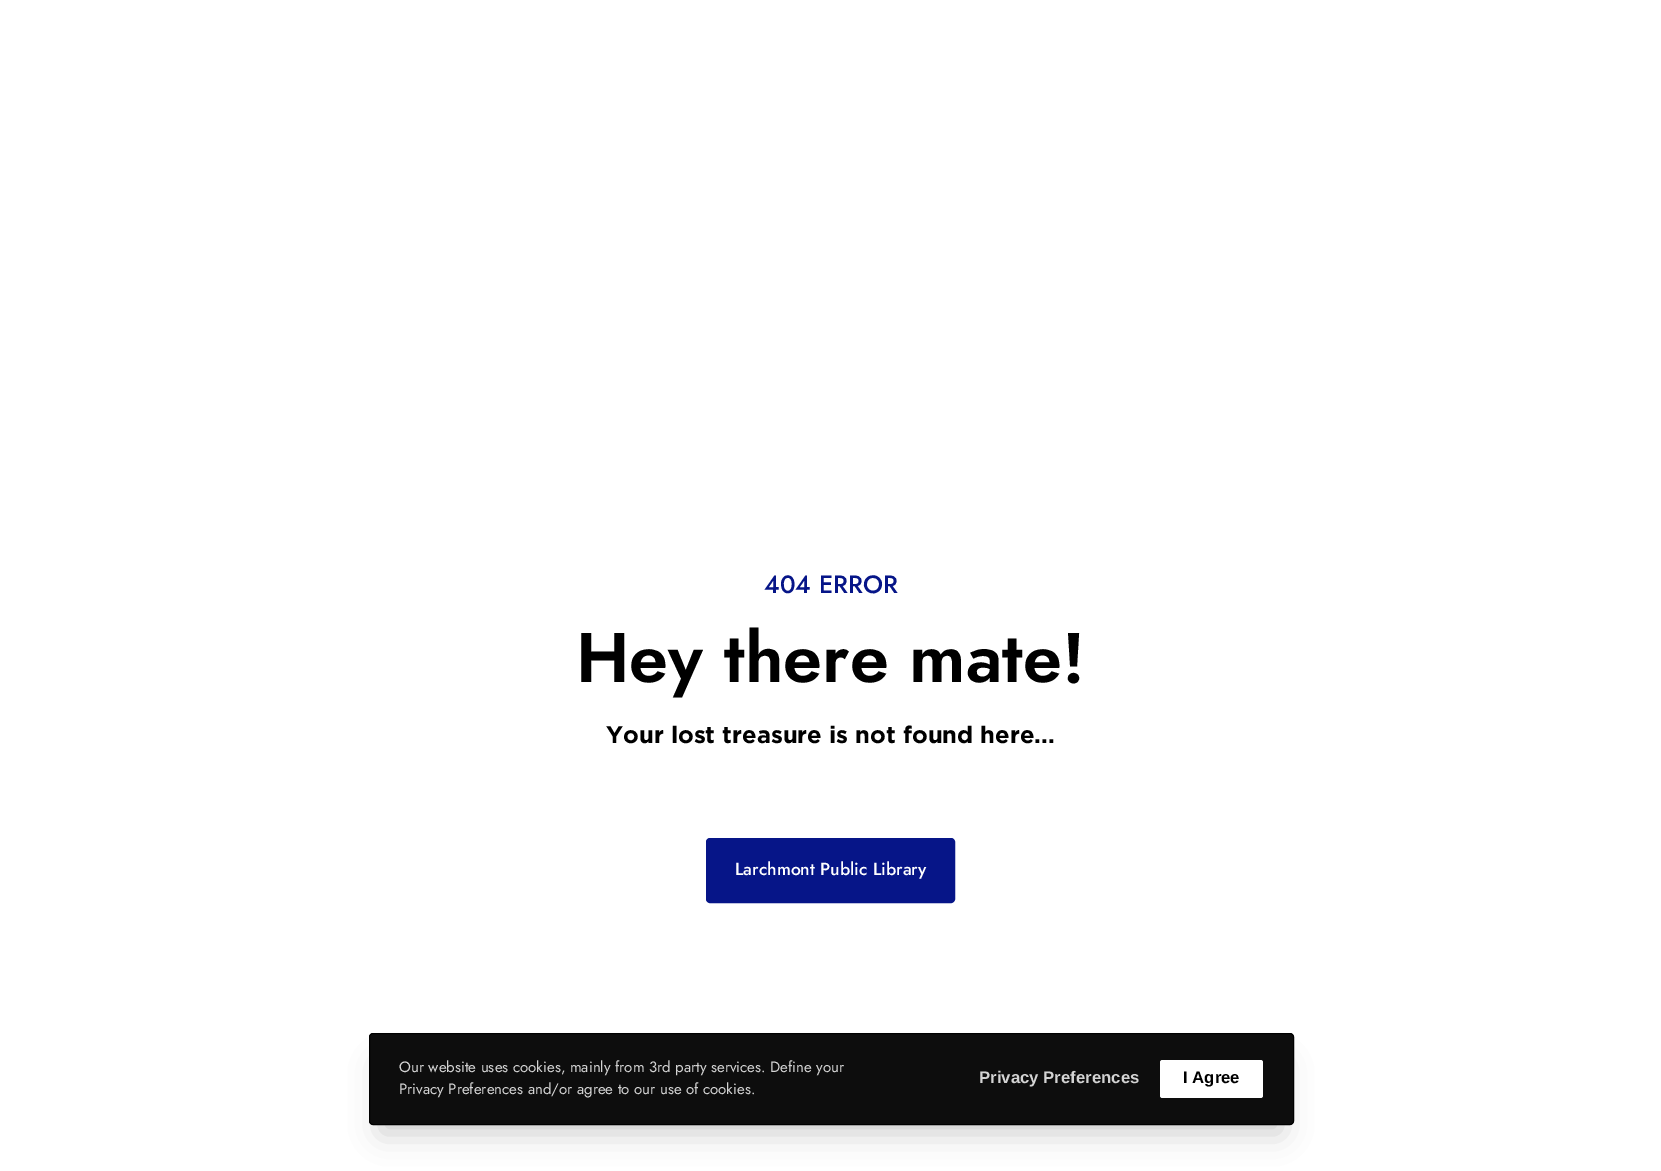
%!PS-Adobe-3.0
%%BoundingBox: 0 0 1661 1171
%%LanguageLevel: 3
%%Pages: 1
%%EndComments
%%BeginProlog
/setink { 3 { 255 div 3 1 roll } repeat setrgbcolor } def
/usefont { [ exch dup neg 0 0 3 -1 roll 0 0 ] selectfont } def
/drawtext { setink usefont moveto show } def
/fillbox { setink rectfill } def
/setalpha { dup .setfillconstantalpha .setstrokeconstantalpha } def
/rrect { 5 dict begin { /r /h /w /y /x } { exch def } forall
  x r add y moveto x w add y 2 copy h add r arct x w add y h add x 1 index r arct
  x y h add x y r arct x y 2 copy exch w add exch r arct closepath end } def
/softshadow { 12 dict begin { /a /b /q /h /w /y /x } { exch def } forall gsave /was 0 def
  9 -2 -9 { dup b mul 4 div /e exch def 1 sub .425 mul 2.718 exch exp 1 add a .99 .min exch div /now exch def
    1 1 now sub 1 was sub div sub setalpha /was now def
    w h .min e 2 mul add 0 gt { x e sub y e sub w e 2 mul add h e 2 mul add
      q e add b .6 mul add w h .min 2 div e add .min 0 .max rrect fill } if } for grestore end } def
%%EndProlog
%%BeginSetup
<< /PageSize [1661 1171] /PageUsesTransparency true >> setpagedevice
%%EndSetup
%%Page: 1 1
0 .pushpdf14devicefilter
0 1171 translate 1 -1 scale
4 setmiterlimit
0 0 1661 1171 255 255 255 fillbox
(404 ERROR) 764 593 /Jost-Medium 25 6 21 136 drawtext
(Hey there mate!) 576 682 /Jost-SemiBold 70 0 0 0 drawtext
(Your lost treasure is not found here...) 606 743 /Gotham-Bold 23.75 0 0 0 drawtext
6 21 136 setink
707.5 839.5 246 62 2.5 rrect gsave fill grestore
3 setlinewidth
stroke
(Larchmont Public Library) 735 875 /Jost-Medium 17.5 255 255 255 drawtext
0 0 0 setink
381 1065 900 68 0 15 0.2 softshadow
13 13 13 setink
369.5 1033.5 924 91 3.5 rrect gsave fill grestore
0 0 0 setink
1 setlinewidth
stroke
(Our website uses cookies, mainly from 3rd party services. Define your) 399 1072 /Jost-Regular 15 211 211 211 drawtext
(Privacy Preferences and/or agree to our use of cookies.) 399 1094 /Jost-Regular 15 211 211 211 drawtext
(Privacy Preferences) 979 1083 /LiberationSans-Bold 16.75 211 211 211 drawtext
255 255 255 setink
1160 1060 103 38 2.5 rrect fill
(I Agree) 1183 1083 /LiberationSans-Bold 16.75 0 0 0 drawtext
.poppdf14devicefilter showpage
%%EOF
